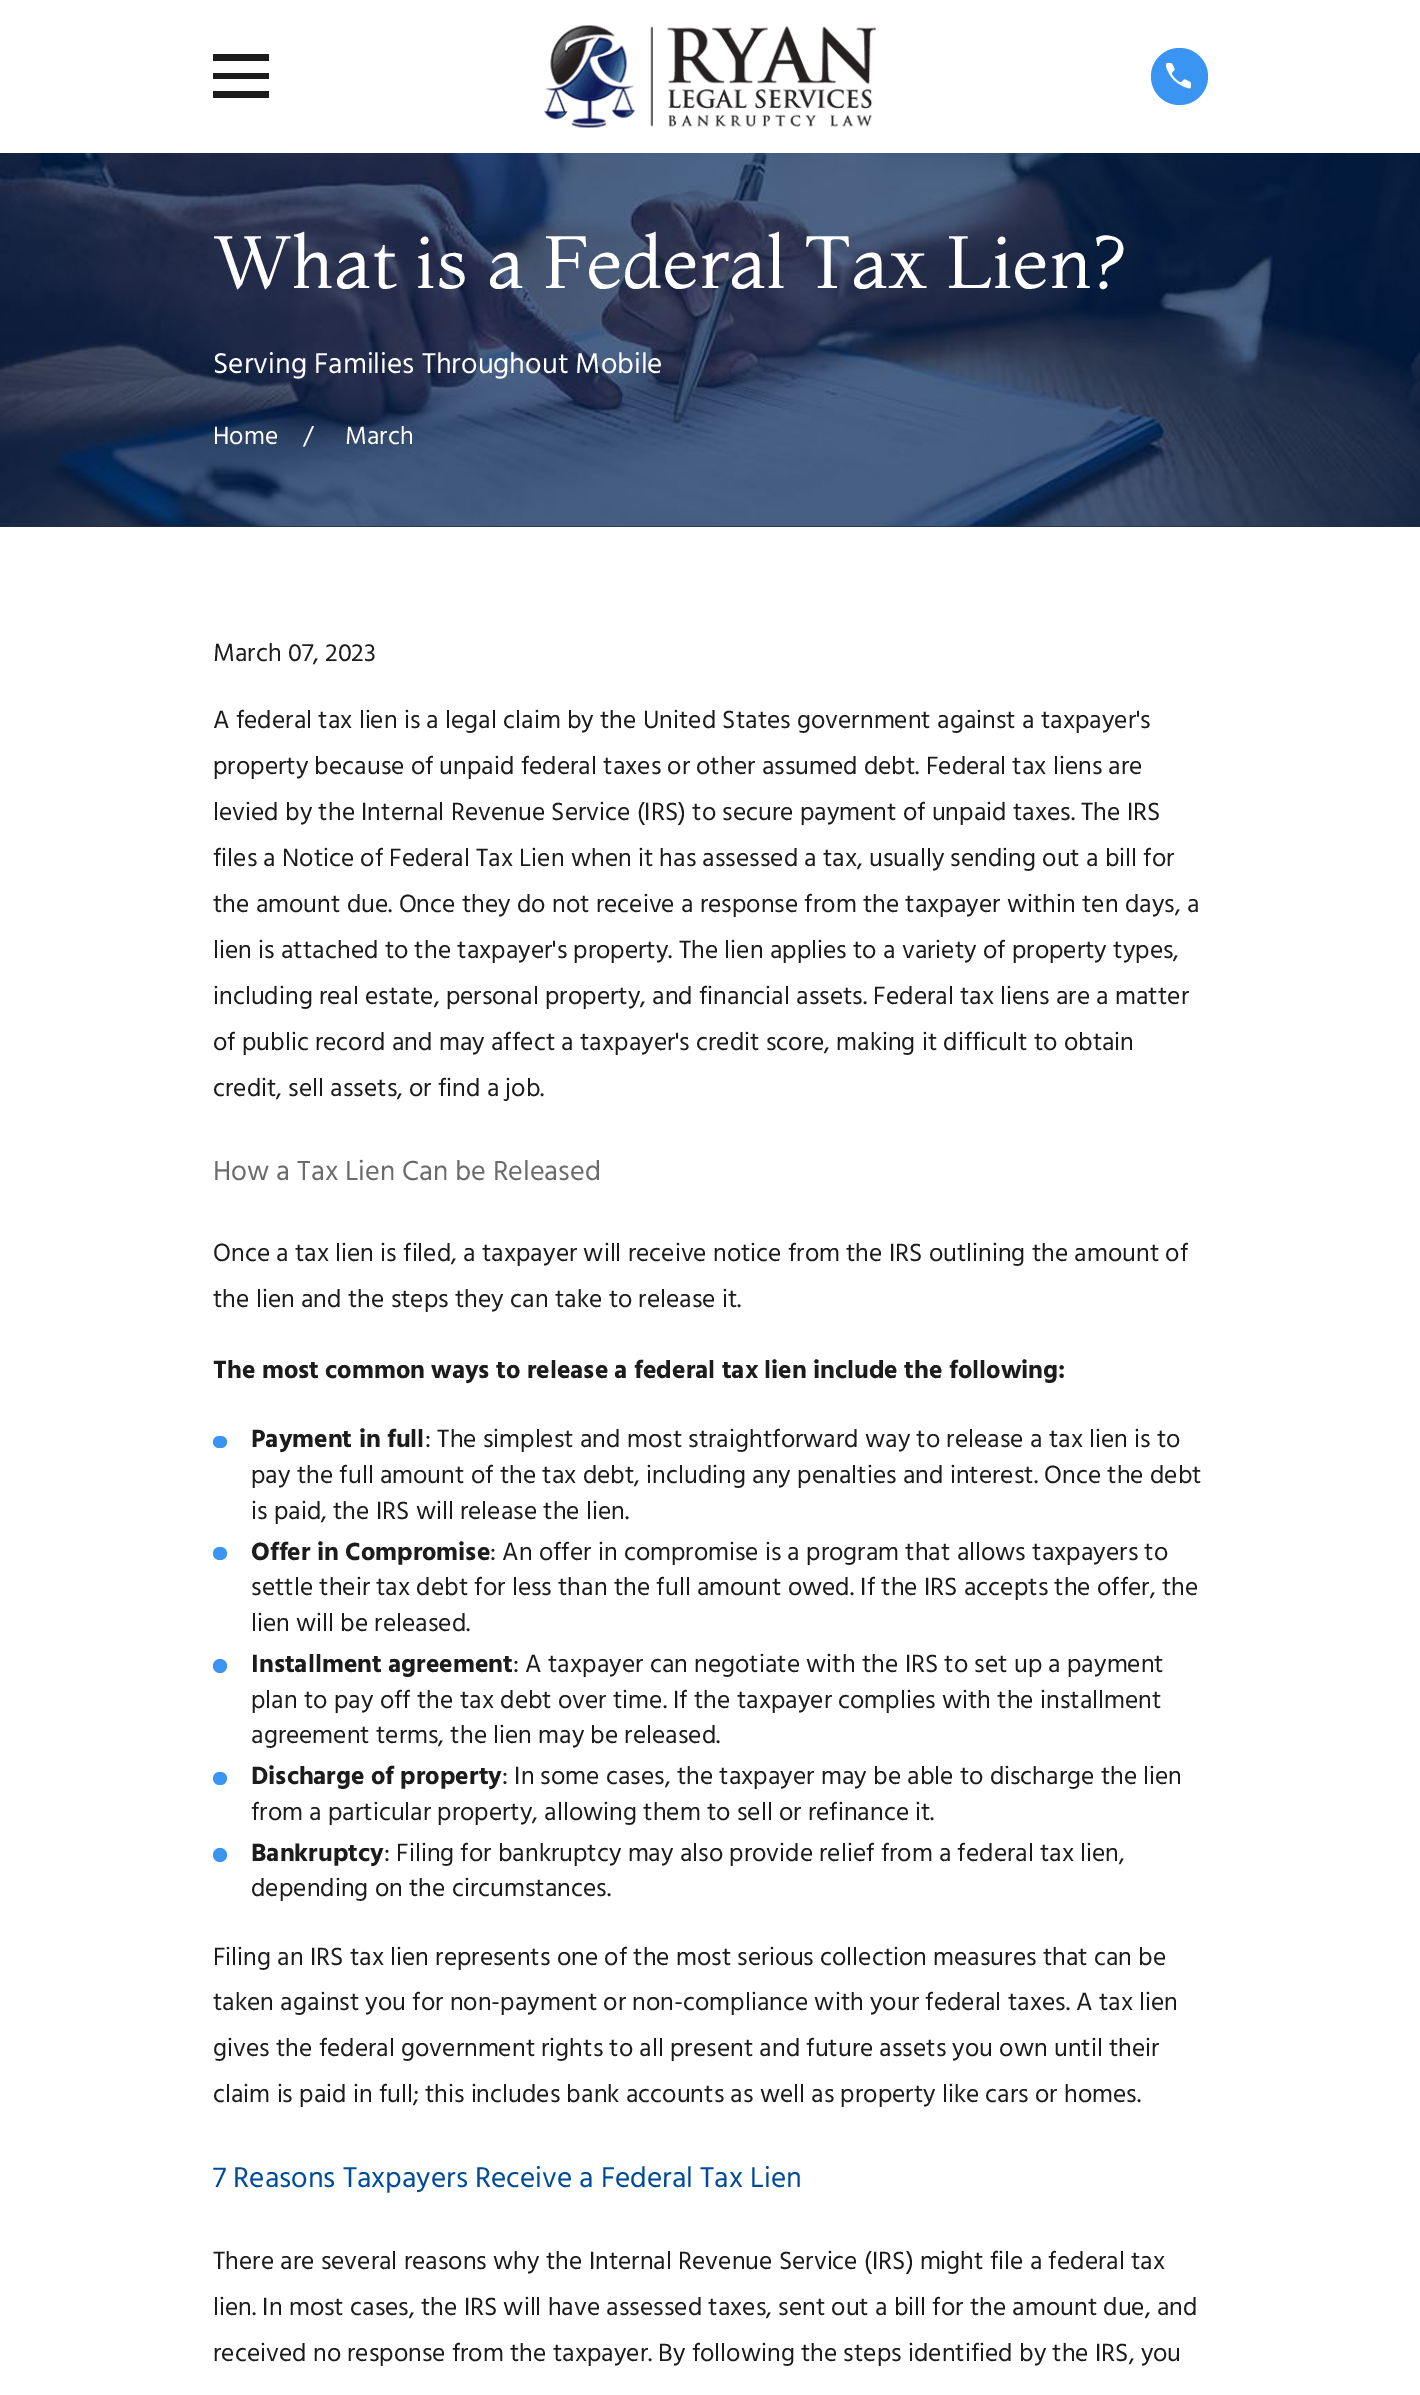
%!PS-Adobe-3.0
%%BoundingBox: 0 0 1420 2395
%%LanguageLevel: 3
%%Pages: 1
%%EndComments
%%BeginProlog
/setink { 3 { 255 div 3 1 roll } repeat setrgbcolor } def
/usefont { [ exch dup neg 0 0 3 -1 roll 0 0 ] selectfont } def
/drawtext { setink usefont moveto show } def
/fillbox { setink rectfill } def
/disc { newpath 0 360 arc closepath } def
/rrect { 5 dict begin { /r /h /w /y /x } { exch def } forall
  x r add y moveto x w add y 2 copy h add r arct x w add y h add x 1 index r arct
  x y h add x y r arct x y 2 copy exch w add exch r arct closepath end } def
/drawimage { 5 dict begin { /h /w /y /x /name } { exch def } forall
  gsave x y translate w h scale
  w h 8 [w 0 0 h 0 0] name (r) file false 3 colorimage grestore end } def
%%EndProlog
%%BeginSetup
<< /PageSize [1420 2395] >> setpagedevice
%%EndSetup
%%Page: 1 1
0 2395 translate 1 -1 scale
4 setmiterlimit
0 0 1420 2395 255 255 255 fillbox
28 28 28 setink
213 54 moveto 213 61 lineto 269 61 lineto 269 54 lineto closepath 213 73 moveto 213 79 lineto 269 79 lineto 269 73 lineto closepath 213 91 moveto 213 98 lineto 269 98 lineto 269 91 lineto closepath fill
(assets/img1.rgb) 544 25 332 103 drawimage
57 148 242 setink
1179.5 76.5 28.5 disc fill
(assets/img2.rgb) 1166 63 25 26 drawimage
0 526 1420 1 36 46 61 fillbox
(assets/img3.rgb) 0 153 1420 374 drawimage
(What is a Federal Tax Lien?) 213 288 /Montaga-Regular 74 255 255 255 drawtext
(Serving Families Throughout Mobile) 213 373 /Hind-Regular 29.3 255 255 255 drawtext
(Home) 213 444 /Hind-Regular 25.5 255 255 255 drawtext
(/) 303 444 /Hind-Regular 25.5 255 255 255 drawtext
(March) 345 444 /Hind-Regular 25.5 255 255 255 drawtext
(March 07, 2023) 213 661 /Hind-Regular 25.5 28 28 28 drawtext
(A federal tax lien is a legal claim by the United States government against a taxpayer's) 213 728 /Hind-Regular 25.5 28 28 28 drawtext
(property because of unpaid federal taxes or other assumed debt. Federal tax liens are) 213 774 /Hind-Regular 25.5 28 28 28 drawtext
(levied by the Internal Revenue Service \(IRS\) to secure payment of unpaid taxes. The IRS) 213 820 /Hind-Regular 25.5 28 28 28 drawtext
(files a Notice of Federal Tax Lien when it has assessed a tax, usually sending out a bill for) 213 866 /Hind-Regular 25.5 28 28 28 drawtext
(the amount due. Once they do not receive a response from the taxpayer within ten days, a) 213 912 /Hind-Regular 25.5 28 28 28 drawtext
(lien is attached to the taxpayer's property. The lien applies to a variety of property types,) 213 958 /Hind-Regular 25.5 28 28 28 drawtext
(including real estate, personal property, and financial assets. Federal tax liens are a matter) 213 1004 /Hind-Regular 25.5 28 28 28 drawtext
(of public record and may affect a taxpayer's credit score, making it difficult to obtain) 213 1050 /Hind-Regular 25.5 28 28 28 drawtext
(credit, sell assets, or find a job.) 213 1096 /Hind-Regular 25.5 28 28 28 drawtext
(How a Tax Lien Can be Released) 213 1180 /Hind-Regular 28.25 107 107 107 drawtext
(Once a tax lien is filed, a taxpayer will receive notice from the IRS outlining the amount of) 213 1261 /Hind-Regular 25.5 28 28 28 drawtext
(the lien and the steps they can take to release it.) 213 1307 /Hind-Regular 25.5 28 28 28 drawtext
(The most common ways to release a federal tax lien include the following:) 213 1378 /Hind-Bold 25.5 28 28 28 drawtext
57 148 242 setink
213 1436 14 12 6 rrect fill
(Payment in full) 251 1447 /Hind-Bold 25.5 28 28 28 drawtext
(: The simplest and most straightforward way to release a tax lien is to) 425 1447 /Hind-Regular 25.5 28 28 28 drawtext
(pay the full amount of the tax debt, including any penalties and interest. Once the debt) 251 1483 /Hind-Regular 25.5 28 28 28 drawtext
(is paid, the IRS will release the lien.) 251 1519 /Hind-Regular 25.5 28 28 28 drawtext
57 148 242 setink
213 1547 14 13 6.5 rrect fill
(Offer in Compromise) 251 1560 /Hind-Bold 25.5 28 28 28 drawtext
(: An offer in compromise is a program that allows taxpayers to) 490 1560 /Hind-Regular 25.5 28 28 28 drawtext
(settle their tax debt for less than the full amount owed. If the IRS accepts the offer, the) 251 1595 /Hind-Regular 25.5 28 28 28 drawtext
(lien will be released.) 251 1631 /Hind-Regular 25.5 28 28 28 drawtext
57 148 242 setink
220 1666 7 disc fill
(Installment agreement) 251 1672 /Hind-Bold 25.5 28 28 28 drawtext
(: A taxpayer can negotiate with the IRS to set up a payment) 513 1672 /Hind-Regular 25.5 28 28 28 drawtext
(plan to pay off the tax debt over time. If the taxpayer complies with the installment) 251 1708 /Hind-Regular 25.5 28 28 28 drawtext
(agreement terms, the lien may be released.) 251 1743 /Hind-Regular 25.5 28 28 28 drawtext
57 148 242 setink
213 1772 14 13 6.5 rrect fill
(Discharge of property) 251 1784 /Hind-Bold 25.5 28 28 28 drawtext
(: In some cases, the taxpayer may be able to discharge the lien) 502 1784 /Hind-Regular 25.5 28 28 28 drawtext
(from a particular property, allowing them to sell or refinance it.) 251 1820 /Hind-Regular 25.5 28 28 28 drawtext
57 148 242 setink
220 1855 7 disc fill
(Bankruptcy) 251 1861 /Hind-Bold 25.5 28 28 28 drawtext
(: Filing for bankruptcy may also provide relief from a federal tax lien,) 384 1861 /Hind-Regular 25.5 28 28 28 drawtext
(depending on the circumstances.) 251 1896 /Hind-Regular 25.5 28 28 28 drawtext
(Filing an IRS tax lien represents one of the most serious collection measures that can be) 213 1965 /Hind-Regular 25.5 28 28 28 drawtext
(taken against you for non-payment or non-compliance with your federal taxes. A tax lien) 213 2010 /Hind-Regular 25.5 28 28 28 drawtext
(gives the federal government rights to all present and future assets you own until their) 213 2056 /Hind-Regular 25.5 28 28 28 drawtext
(claim is paid in full; this includes bank accounts as well as property like cars or homes.) 213 2102 /Hind-Regular 25.5 28 28 28 drawtext
(7 Reasons Taxpayers Receive a Federal Tax Lien) 213 2187 /Hind-Regular 29.3 0 75 153 drawtext
(There are several reasons why the Internal Revenue Service \(IRS\) might file a federal tax) 213 2269 /Hind-Regular 25.5 28 28 28 drawtext
(lien. In most cases, the IRS will have assessed taxes, sent out a bill for the amount due, and) 213 2315 /Hind-Regular 25.5 28 28 28 drawtext
(received no response from the taxpayer. By following the steps identified by the IRS, you) 213 2361 /Hind-Regular 25.5 28 28 28 drawtext
showpage
%%EOF
